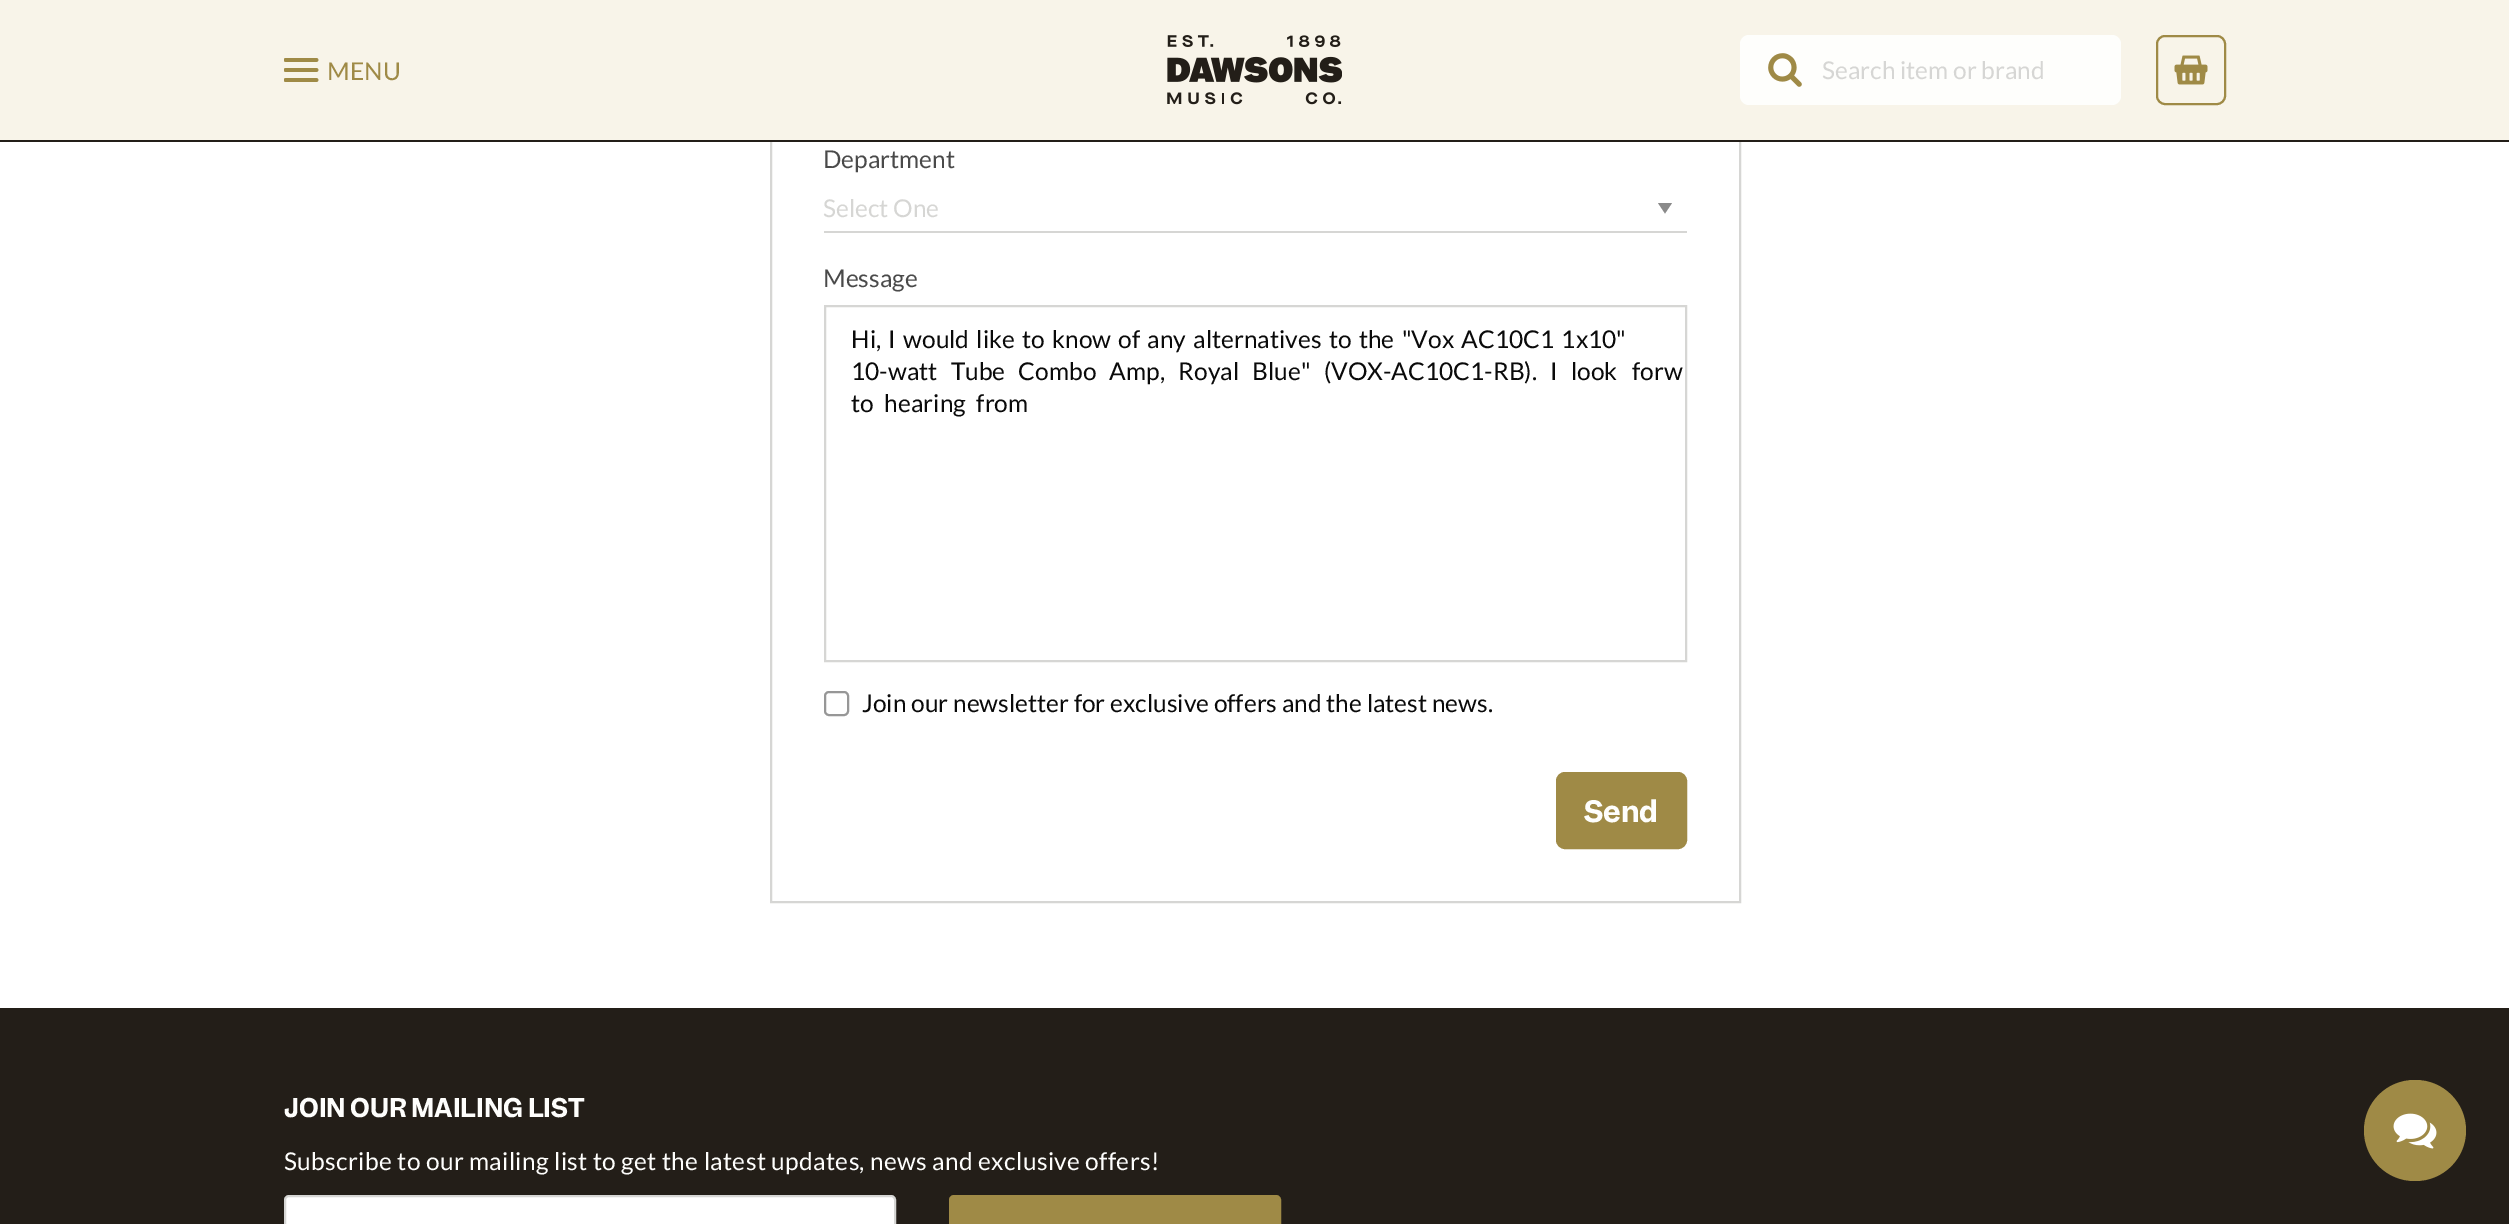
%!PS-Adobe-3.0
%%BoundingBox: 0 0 2509 1224
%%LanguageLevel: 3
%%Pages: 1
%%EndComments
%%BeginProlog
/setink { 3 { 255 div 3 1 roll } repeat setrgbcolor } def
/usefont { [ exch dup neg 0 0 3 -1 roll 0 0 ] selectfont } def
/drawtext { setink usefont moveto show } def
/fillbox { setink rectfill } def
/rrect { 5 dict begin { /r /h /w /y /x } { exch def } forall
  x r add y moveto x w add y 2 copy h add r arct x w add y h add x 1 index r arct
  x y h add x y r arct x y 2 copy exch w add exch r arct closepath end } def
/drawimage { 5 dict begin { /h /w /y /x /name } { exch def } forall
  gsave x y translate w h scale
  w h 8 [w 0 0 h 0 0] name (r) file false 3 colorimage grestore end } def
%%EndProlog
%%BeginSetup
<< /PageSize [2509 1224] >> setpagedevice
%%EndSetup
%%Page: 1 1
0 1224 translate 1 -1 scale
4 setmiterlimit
0 0 2509 1224 255 255 255 fillbox
214 214 212 setink
2 setlinewidth
771 -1 969 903 rectstroke
0 0 2509 140 248 244 233 fillbox
0 140 2509 2 35 30 24 fillbox
(assets/img1.rgb) 284 58 35 24 drawimage
/Lato-Regular 24.5 usefont
159 138 70 setink
327 80 moveto 0.35 0 (MENU) ashow
(assets/img2.rgb) 1167 35 175 70 drawimage
254 254 252 setink
1740 35 381 70 9 rrect fill
(assets/img3.rgb) 1768 53 34 34 drawimage
(Search item or brand) 1822 79 /Lato-Regular 24.5 214 214 212 drawtext
159 138 70 setink
2157 36 68 68 8 rrect stroke
(assets/img4.rgb) 2174 55 34 30 drawimage
(Department) 823 168 /Lato-Regular 24.5 74 74 74 drawtext
138 138 138 setink
1658 203 moveto 1672 203 lineto 1665 213.5 lineto closepath fill
824 231 863 2 214 214 212 fillbox
(Select One) 823 217 /Lato-Regular 24.5 214 214 212 drawtext
(Message) 823 287 /Lato-Regular 24.5 74 74 74 drawtext
214 214 212 setink
825 306 861 355 rectstroke
10 10 10 setink
851 348 moveto 2.6 0 32 (Hi, I would like to know of any alternatives to the "Vox AC10C1 1x10") widthshow
851 380 moveto 8.5 0 32 (10-watt Tube Combo Amp, Royal Blue" \(VOX-AC10C1-RB\). I look) widthshow
(forw) 1632 380 /Lato-Regular 24.5 10 10 10 drawtext
851 412 moveto 6 0 32 (to hearing from) widthshow
151 151 151 setink
825 692 23 23 4 rrect stroke
(Join our newsletter for exclusive offers and the latest news.) 862 712 /Lato-Regular 24.5 10 10 10 drawtext
159 138 70 setink
1557 773 129 75 8 rrect gsave fill grestore
stroke
(Send) 1584 822 /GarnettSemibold-SemiBold 28 254 254 252 drawtext
0 1008 2509 216 35 30 24 fillbox
(JOIN OUR MAILING LIST) 284 1117 /GarnettSemibold-SemiBold 24.5 254 254 252 drawtext
/Lato-Regular 24.5 usefont
284 1170 moveto 0.35 0 (Subscribe to our mailing list to get the latest updates, news and exclusive offers!) ashow
255 255 255 setink
285 1196 610 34 4 rrect gsave fill grestore
214 214 212 setink
stroke
159 138 70 setink
950 1196 330 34 4 rrect gsave fill grestore
stroke
2364 1080 102 101 50.5 rrect fill
(assets/img5.rgb) 2393 1113 44 36 drawimage
showpage
%%EOF
